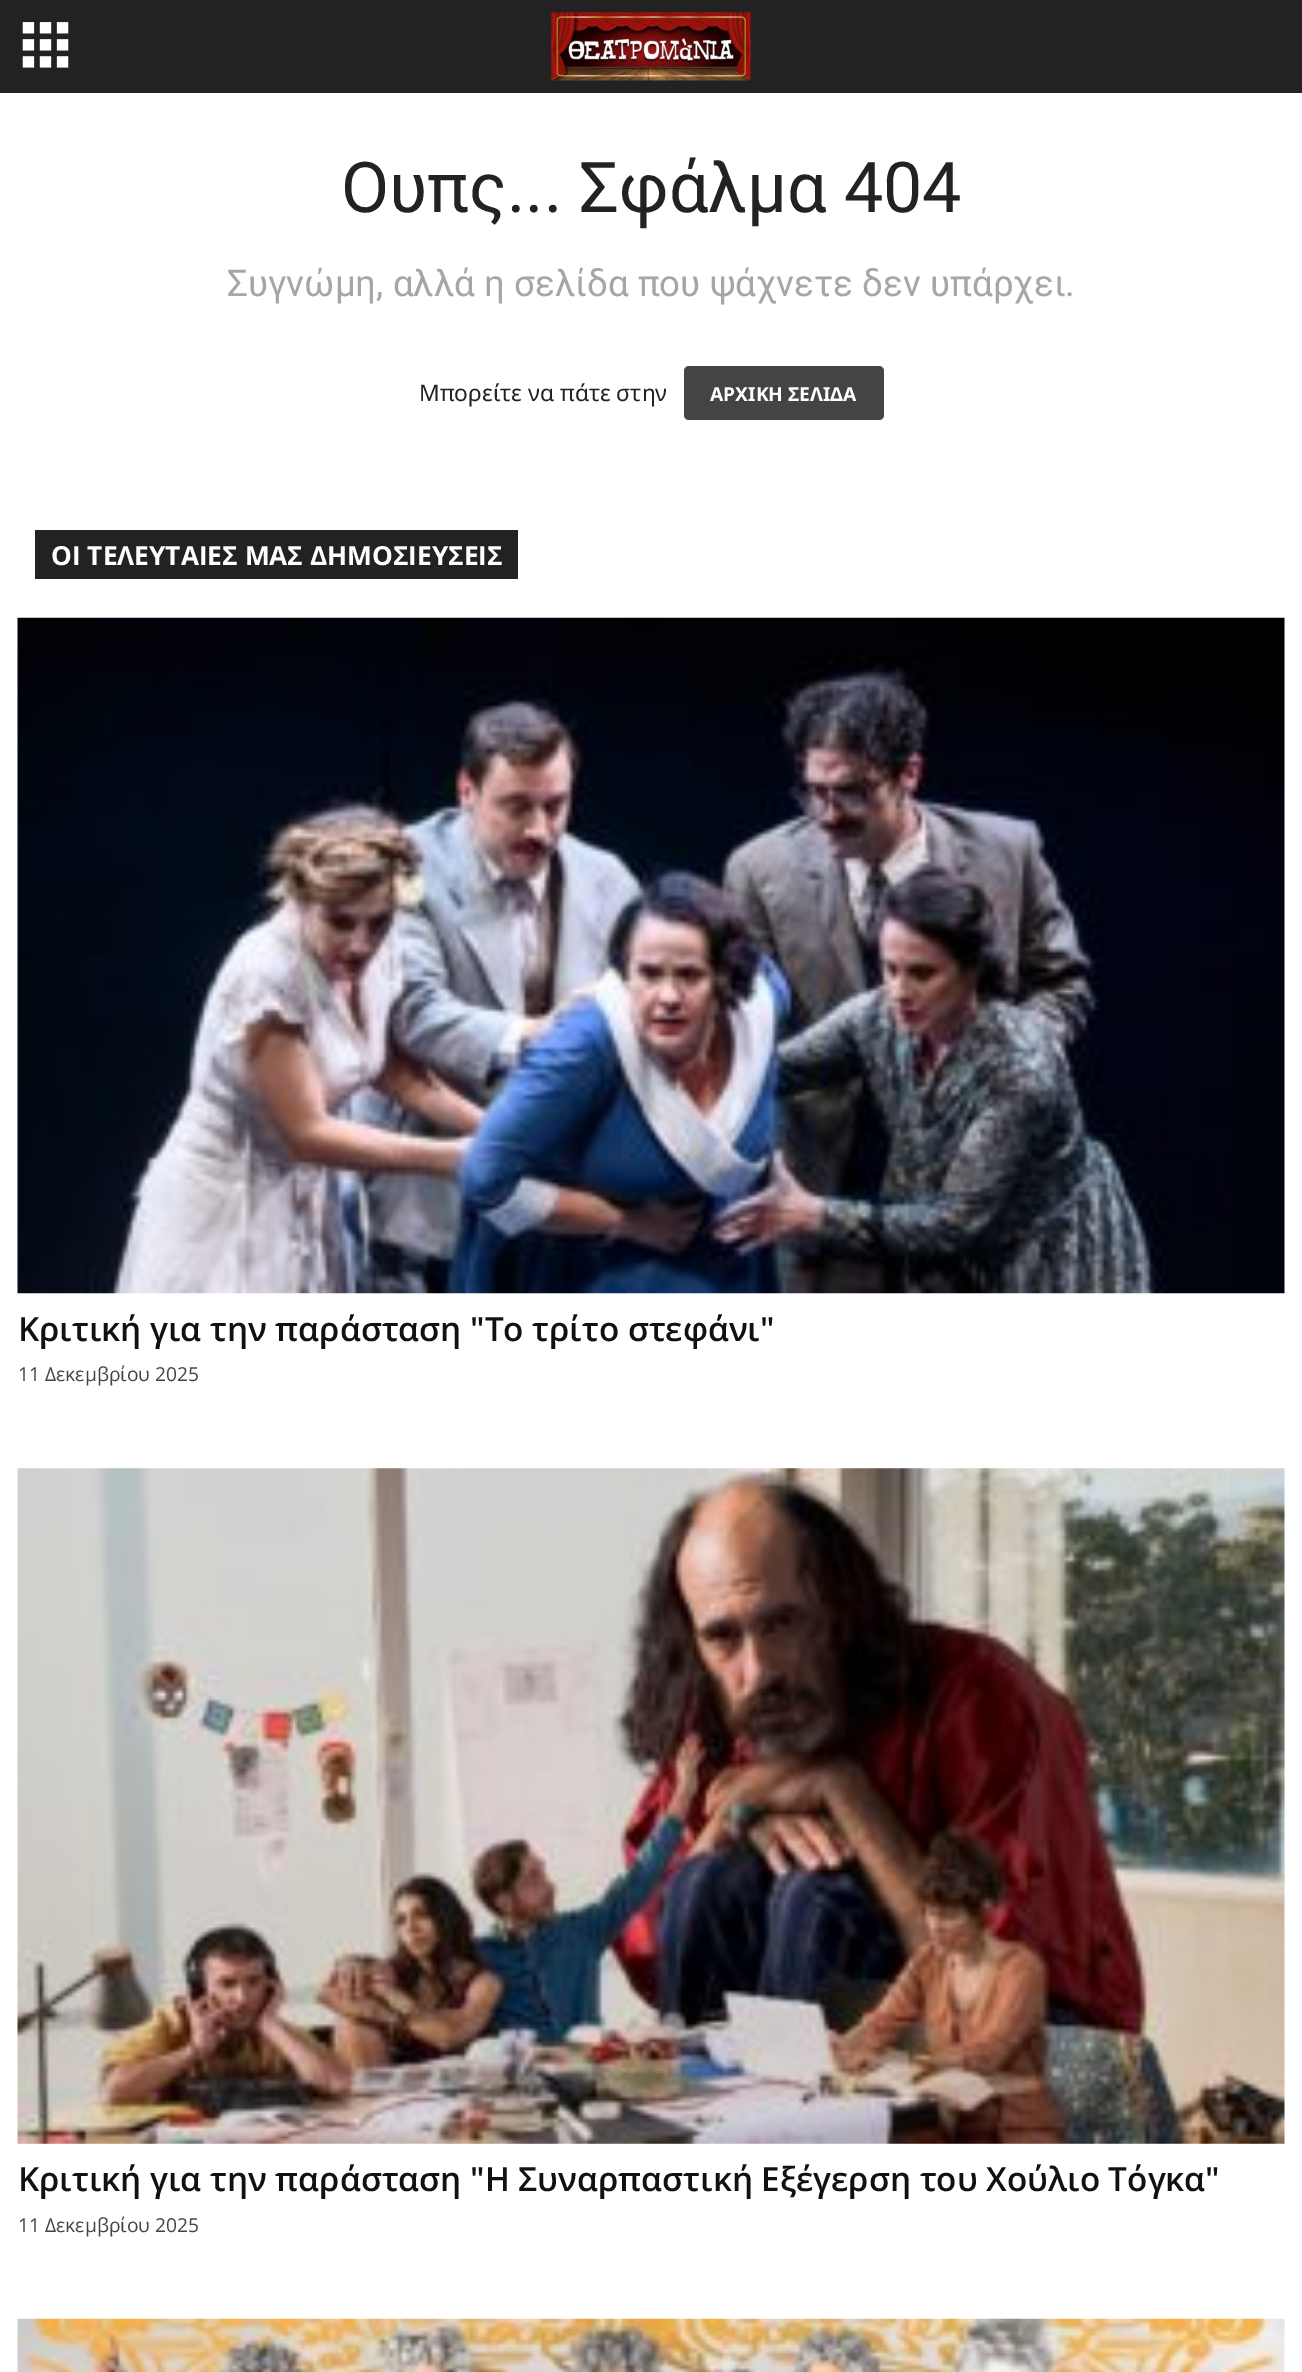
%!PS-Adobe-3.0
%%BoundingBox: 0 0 1302 2372
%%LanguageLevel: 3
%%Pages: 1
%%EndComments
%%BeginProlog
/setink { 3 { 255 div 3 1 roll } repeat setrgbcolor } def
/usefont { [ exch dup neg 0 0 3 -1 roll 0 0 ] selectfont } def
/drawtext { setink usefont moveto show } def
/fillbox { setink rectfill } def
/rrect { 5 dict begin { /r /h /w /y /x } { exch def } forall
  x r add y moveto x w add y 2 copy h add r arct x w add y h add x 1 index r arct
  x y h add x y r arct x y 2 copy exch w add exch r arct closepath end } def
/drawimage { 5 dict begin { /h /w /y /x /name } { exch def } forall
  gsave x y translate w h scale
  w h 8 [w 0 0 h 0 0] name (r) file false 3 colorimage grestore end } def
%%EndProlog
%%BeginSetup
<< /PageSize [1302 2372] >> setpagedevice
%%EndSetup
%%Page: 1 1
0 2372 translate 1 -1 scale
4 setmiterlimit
0 0 1302 2372 255 255 255 fillbox
0 0 1302 93 34 34 34 fillbox
(assets/img1.rgb) 22 22 47 46 drawimage
(assets/img2.rgb) 551 12 200 69 drawimage
(Ουπς... Σφάλμα 404) 341 212 /Roboto-Regular 70 34 34 34 drawtext
(Συγνώμη, αλλά η σελίδα που ψάχνετε δεν υπάρχει.) 227 296 /Roboto-Regular 36.75 166 166 166 drawtext
(Μπορείτε να πάτε στην) 419 401 /NotoSans-Regular 22.75 34 34 34 drawtext
68 68 68 setink
684 366 200 54 5 rrect fill
(ΑΡΧΙΚΗ ΣΕΛΙΔΑ) 710 401 /NotoSans-Bold 19.25 255 255 255 drawtext
35 530 483 49 34 34 34 fillbox
(ΟΙ ΤΕΛΕΥΤΑΙΕΣ ΜΑΣ ΔΗΜΟΣΙΕΥΣΕΙΣ) 51 565 /OpenSans-Bold 26.25 255 255 255 drawtext
(assets/img3.rgb) 17 617 1268 677 drawimage
(Κριτική για την παράσταση "Το τρίτο στεφάνι") 18 1341 /OpenSans-SemiBold 33.25 17 17 17 drawtext
(11 Δεκεμβρίου 2025) 18 1381 /OpenSans-Regular 19.25 68 68 68 drawtext
(assets/img4.rgb) 17 1468 1268 676 drawimage
(Κριτική για την παράσταση "Η Συναρπαστική Εξέγερση του Χούλιο Τόγκα") 18 2191 /OpenSans-SemiBold 33.25 17 17 17 drawtext
(11 Δεκεμβρίου 2025) 18 2232 /OpenSans-Regular 19.25 68 68 68 drawtext
(assets/img5.rgb) 17 2318 1268 54 drawimage
showpage
%%EOF
